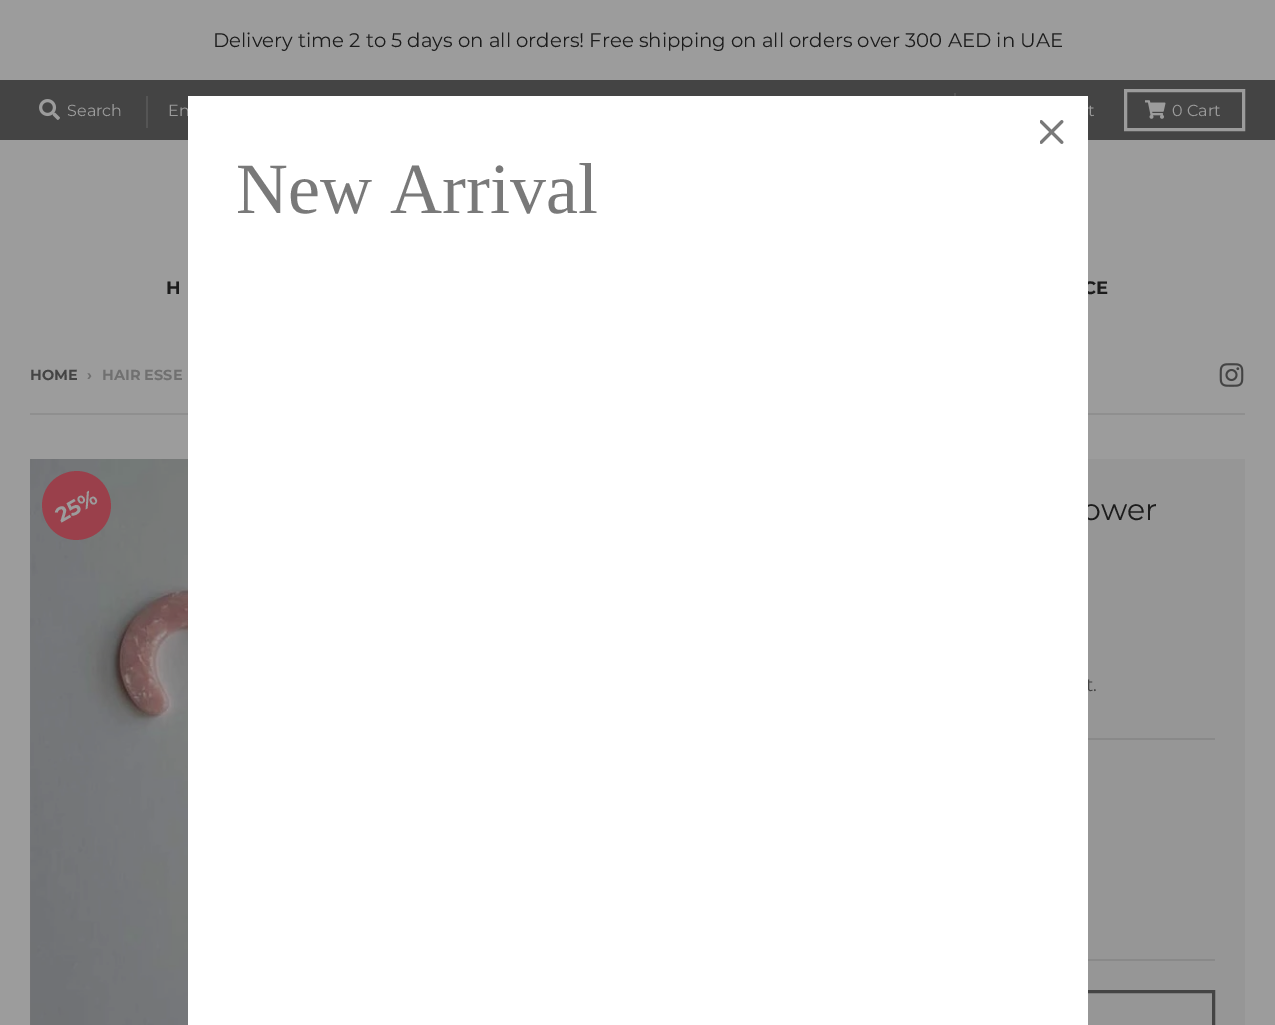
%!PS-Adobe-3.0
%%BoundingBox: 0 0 1275 1025
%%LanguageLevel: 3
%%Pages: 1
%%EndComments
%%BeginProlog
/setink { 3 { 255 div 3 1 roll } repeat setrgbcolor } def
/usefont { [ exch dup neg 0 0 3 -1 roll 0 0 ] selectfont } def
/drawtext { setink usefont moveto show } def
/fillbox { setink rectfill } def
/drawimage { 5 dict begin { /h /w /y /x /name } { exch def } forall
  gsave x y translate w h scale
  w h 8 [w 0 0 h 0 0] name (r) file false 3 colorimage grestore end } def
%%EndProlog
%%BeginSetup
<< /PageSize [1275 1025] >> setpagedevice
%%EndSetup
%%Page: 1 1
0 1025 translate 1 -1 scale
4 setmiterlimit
0 0 1275 1025 156 156 156 fillbox
(Delivery time 2 to 5 days on all orders! Free shipping on all orders over 300 AED in UAE) 213 47 /Montserrat-Regular 19.7 28 28 28 drawtext
0 80 1275 60 68 68 68 fillbox
(assets/img1.rgb) 39 99 21 21 drawimage
(Search) 67 116 /Montserrat-Regular 16 156 156 156 drawtext
146 96 2 32 85 85 85 fillbox
(En) 168 116 /Montserrat-Regular 16 156 156 156 drawtext
954 93 2 3 85 85 85 fillbox
(t) 1088 116 /Montserrat-Regular 16 156 156 156 drawtext
3 setlinewidth
1125.5 90.5 118 39 rectstroke
(assets/img2.rgb) 1145 100 21 19 drawimage
(0 Cart) 1172 116 /Montserrat-Regular 16 156 156 156 drawtext
(H) 166 294 /Montserrat-Bold 18 28 28 28 drawtext
(CE) 1083 294 /Montserrat-Bold 18 28 28 28 drawtext
(HOME) 30 380 /Montserrat-Bold 14.5 68 68 68 drawtext
(›) 87 380 /Montserrat-Bold 14.5 112 112 112 drawtext
(HAIR ESSE) 102 380 /Montserrat-Bold 14.5 112 112 112 drawtext
(assets/img3.rgb) 1219 363 25 24 drawimage
30 413 1215 2 143 143 143 fillbox
(assets/img4.rgb) 30 459 158 566 drawimage
154 64 75 setink
59 476 moveto 76 466 97 472 106 488 curveto 116 505 110 526 94 535 curveto 77 545 56 539 47 523 curveto 37 506 43 485 59 476 curveto closepath fill
/Montserrat-Bold 21 usefont
156 156 156 setink
gsave 61 523 translate -30 rotate 0 0 moveto (25%) show grestore
1088 459 157 566 150 150 150 fillbox
(ower) 1082 520 /Montserrat-Regular 30 28 28 28 drawtext
1088 738 127 2 137 137 137 fillbox
(t.) 1086 691 /Montserrat-Regular 18 68 68 68 drawtext
1088 959 127 2 137 137 137 fillbox
68 68 68 setink
796.5 991.5 417 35 rectstroke
188 96 900 929 255 255 255 fillbox
(assets/img5.rgb) 1040 120 24 24 drawimage
(New Arrival) 236 213 /LiberationSerif-Regular 72 121 121 121 drawtext
showpage
%%EOF
